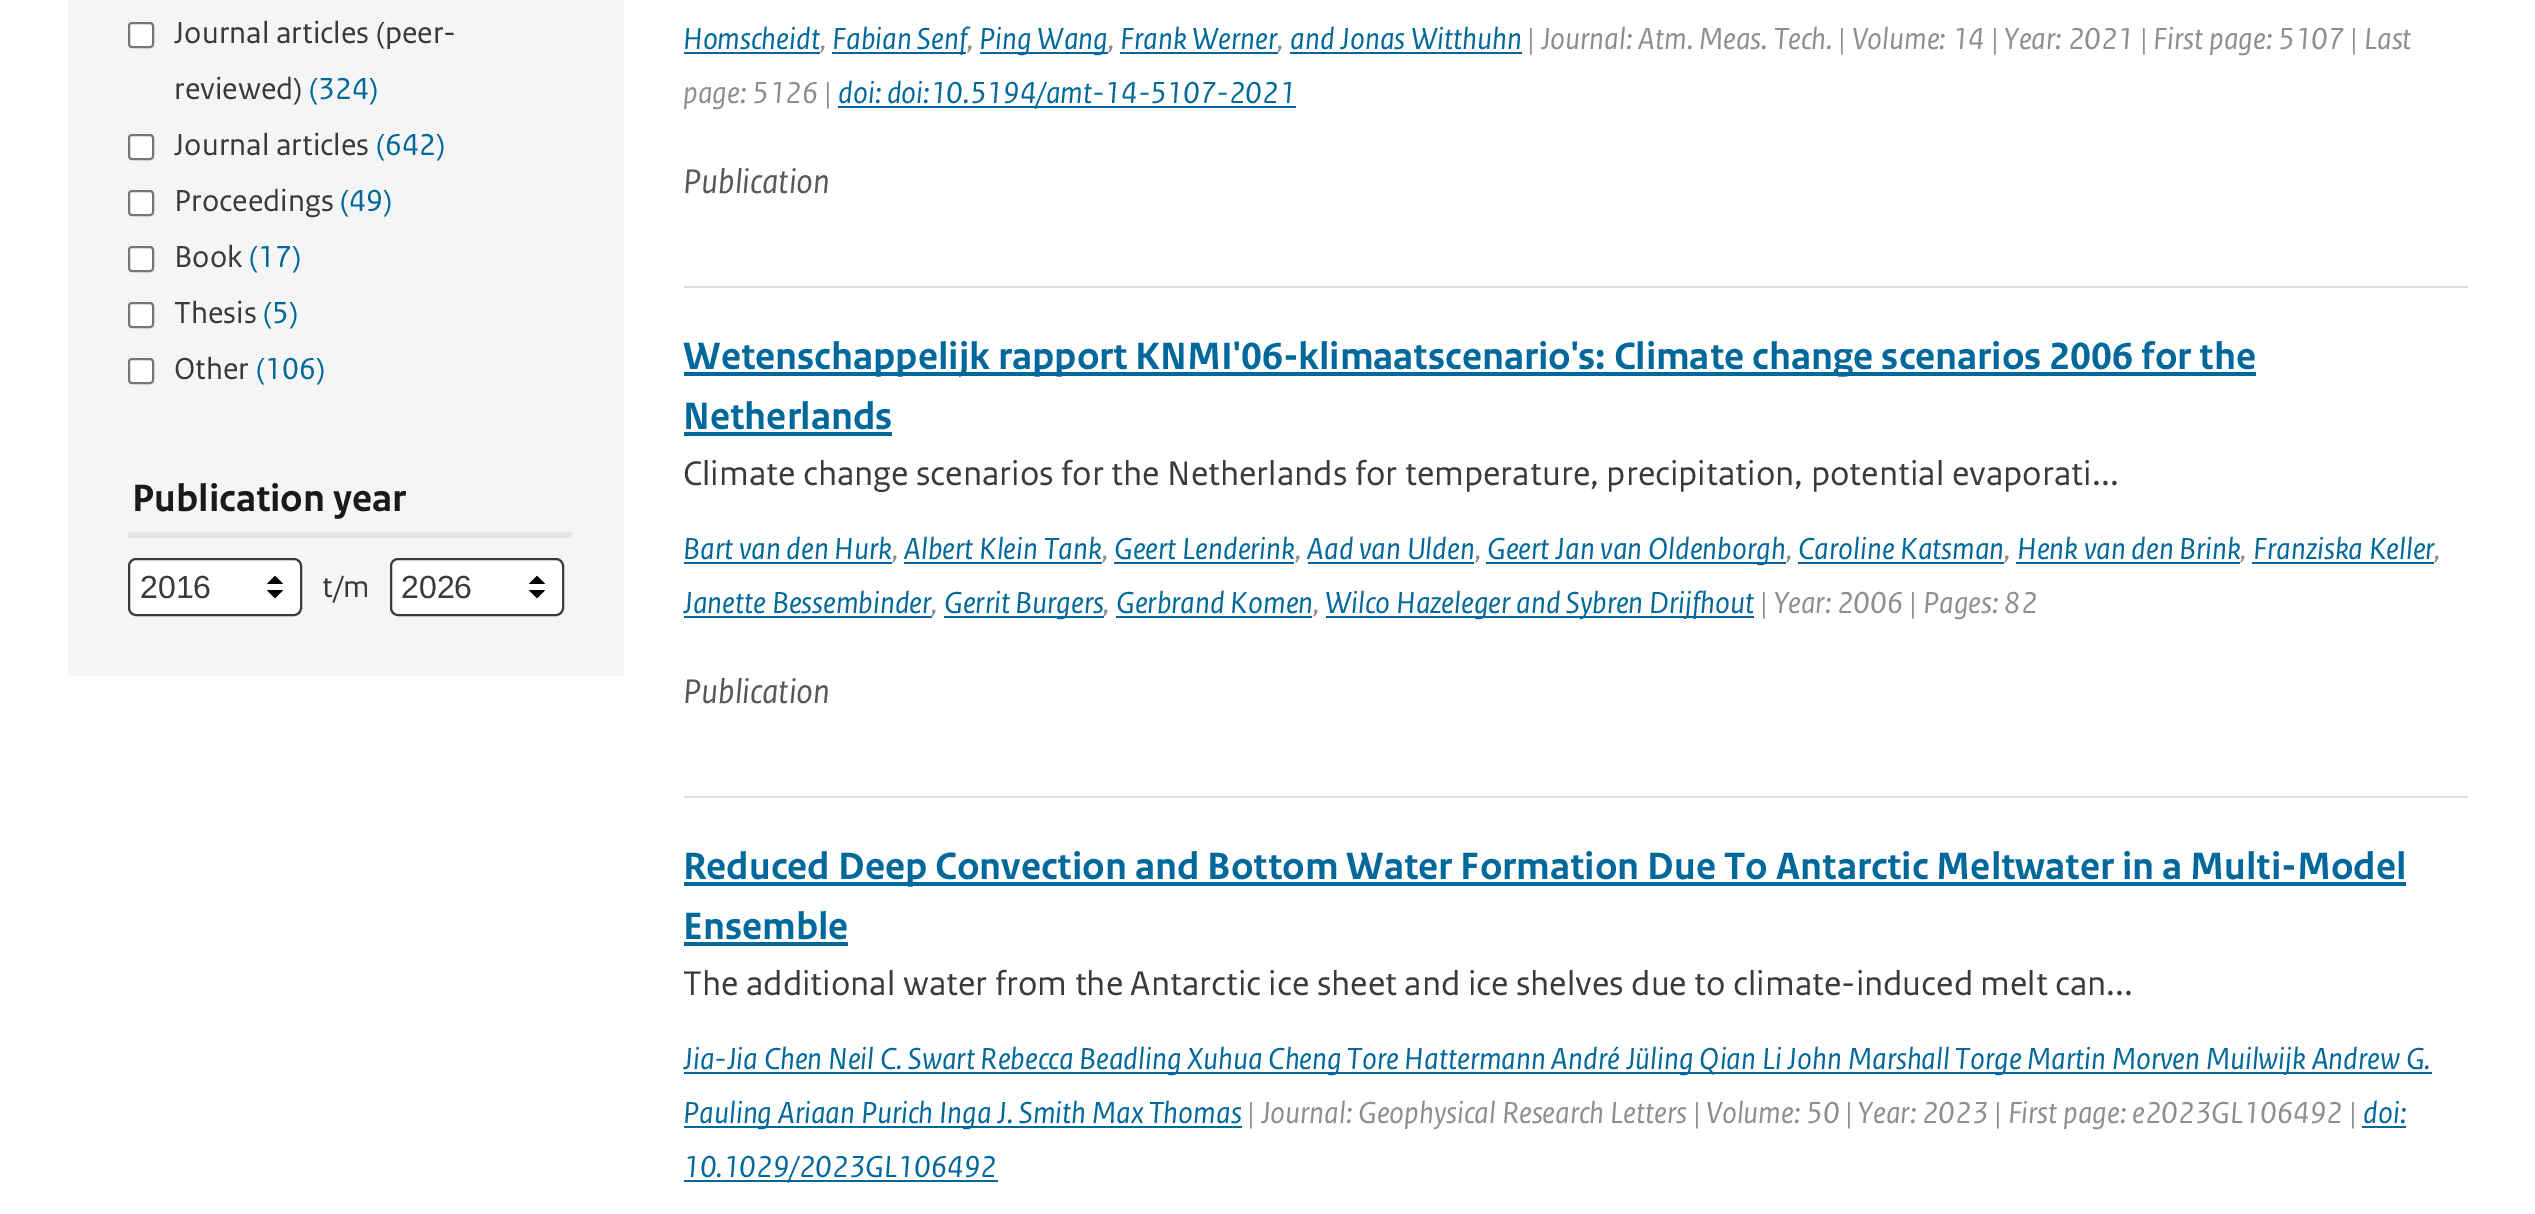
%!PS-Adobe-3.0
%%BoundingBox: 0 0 2535 1214
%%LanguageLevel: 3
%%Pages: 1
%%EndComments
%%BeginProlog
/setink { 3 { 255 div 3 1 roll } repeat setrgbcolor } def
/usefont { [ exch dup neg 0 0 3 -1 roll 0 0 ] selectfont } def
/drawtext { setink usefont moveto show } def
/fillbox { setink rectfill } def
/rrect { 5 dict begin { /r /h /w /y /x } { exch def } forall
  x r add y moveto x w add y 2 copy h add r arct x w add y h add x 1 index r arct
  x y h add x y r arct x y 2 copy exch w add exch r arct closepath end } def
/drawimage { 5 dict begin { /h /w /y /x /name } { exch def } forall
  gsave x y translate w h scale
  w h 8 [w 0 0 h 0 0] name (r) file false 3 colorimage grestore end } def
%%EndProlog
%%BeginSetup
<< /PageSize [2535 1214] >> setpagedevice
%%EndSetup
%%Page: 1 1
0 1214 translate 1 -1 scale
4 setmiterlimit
0 0 2535 1214 255 255 255 fillbox
68 0 556 676 245 245 245 fillbox
255 255 255 setink
129 23 24 24 3 rrect gsave fill grestore
118 118 118 setink
2 setlinewidth
stroke
(Journal articles \(peer-) 174 43 /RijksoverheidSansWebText-Regular 32 58 58 58 drawtext
(reviewed\)) 174 99 /RijksoverheidSansWebText-Regular 32 58 58 58 drawtext
(\(324\)) 309 99 /RijksoverheidSansWebText-Regular 32 1 104 155 drawtext
255 255 255 setink
129 135 24 24 3 rrect gsave fill grestore
118 118 118 setink
stroke
(Journal articles) 174 155 /RijksoverheidSansWebText-Regular 32 58 58 58 drawtext
(\(642\)) 376 155 /RijksoverheidSansWebText-Regular 32 1 104 155 drawtext
255 255 255 setink
129 191 24 24 3 rrect gsave fill grestore
118 118 118 setink
stroke
(Proceedings) 174 211 /RijksoverheidSansWebText-Regular 32 58 58 58 drawtext
(\(49\)) 340 211 /RijksoverheidSansWebText-Regular 32 1 104 155 drawtext
255 255 255 setink
129 247 24 24 3 rrect gsave fill grestore
118 118 118 setink
stroke
(Book) 174 267 /RijksoverheidSansWebText-Regular 32 58 58 58 drawtext
(\(17\)) 249 267 /RijksoverheidSansWebText-Regular 32 1 104 155 drawtext
255 255 255 setink
129 303 24 24 3 rrect gsave fill grestore
118 118 118 setink
stroke
(Thesis) 174 323 /RijksoverheidSansWebText-Regular 32 58 58 58 drawtext
(\(5\)) 263 323 /RijksoverheidSansWebText-Regular 32 1 104 155 drawtext
255 255 255 setink
129 359 24 24 3 rrect gsave fill grestore
118 118 118 setink
stroke
(Other) 174 379 /RijksoverheidSansWebText-Regular 32 58 58 58 drawtext
(\(106\)) 256 379 /RijksoverheidSansWebText-Regular 32 1 104 155 drawtext
128 532 444 6 230 230 230 fillbox
(Publication year) 132 511 /RijksoverheidSansWebText-Bold 40 26 26 26 drawtext
255 255 255 setink
128 558 174 58 8 rrect fill
(assets/img1.rgb) 267 575 16 24 drawimage
58 58 58 setink
129 559 172 56 7 rrect stroke
(2016) 140 598 /LiberationSans-Regular 32 58 58 58 drawtext
(t/m) 322 597 /RijksoverheidSansWebText-Regular 32 58 58 58 drawtext
255 255 255 setink
390 558 174 58 8 rrect fill
(assets/img2.rgb) 529 575 16 24 drawimage
58 58 58 setink
391 559 172 56 7 rrect stroke
(2026) 401 598 /LiberationSans-Regular 32 58 58 58 drawtext
684 286 1784 2 222 222 222 fillbox
(Homscheidt) 683 49 /RijksoverheidSansWebText-Italic 32 1 104 155 drawtext
684 52 136 2 1 104 155 fillbox
(,) 820 49 /RijksoverheidSansWebText-Italic 32 142 142 142 drawtext
832 52 134 2 1 104 155 fillbox
(Fabian Senf) 832 49 /RijksoverheidSansWebText-Italic 32 1 104 155 drawtext
980 52 128 2 1 104 155 fillbox
(Ping Wang) 979 49 /RijksoverheidSansWebText-Italic 32 1 104 155 drawtext
(Frank Werner) 1120 49 /RijksoverheidSansWebText-Italic 32 1 104 155 drawtext
(and Jonas Witthuhn) 1290 49 /RijksoverheidSansWebText-Italic 32 1 104 155 drawtext
(| Journal: Atm. Meas. Tech. | Volume: 14 | Year: 2021 | First page: 5107 | Last) 1527 49 /RijksoverheidSansWebText-Italic 32 142 142 142 drawtext
(,) 967 49 /RijksoverheidSansWebText-Italic 32 142 142 142 drawtext
(,) 1108 49 /RijksoverheidSansWebText-Italic 32 142 142 142 drawtext
1120 52 158 2 1 104 155 fillbox
(,) 1277 49 /RijksoverheidSansWebText-Italic 32 142 142 142 drawtext
1290 52 232 2 1 104 155 fillbox
(page: 5126 |) 683 103 /RijksoverheidSansWebText-Italic 32 142 142 142 drawtext
838 106 458 2 1 104 155 fillbox
(doi: doi:10.5194/amt-14-5107-2021) 838 103 /RijksoverheidSansWebText-Italic 32 1 104 155 drawtext
(Publication) 683 193 /RijksoverheidSansWebText-Italic 36 88 88 88 drawtext
684 796 1784 2 222 222 222 fillbox
684 372 1572 4 1 104 155 fillbox
(Wetenschappelijk rapport KNMI'06-klimaatscenario's: Climate change scenarios 2006 for the) 683 369 /RijksoverheidSansWebText-Bold 40 1 104 155 drawtext
(Netherlands) 683 429 /RijksoverheidSansWebText-Bold 40 1 104 155 drawtext
684 432 208 4 1 104 155 fillbox
(Climate change scenarios for the Netherlands for temperature, precipitation, potential evaporati...) 683 485 /RijksoverheidSansWebText-Regular 36 58 58 58 drawtext
(Bart van den Hurk) 683 559 /RijksoverheidSansWebText-Italic 32 1 104 155 drawtext
684 562 208 2 1 104 155 fillbox
(,) 892 559 /RijksoverheidSansWebText-Italic 32 142 142 142 drawtext
(Albert Klein Tank) 904 559 /RijksoverheidSansWebText-Italic 32 1 104 155 drawtext
904 562 198 2 1 104 155 fillbox
(,) 1102 559 /RijksoverheidSansWebText-Italic 32 142 142 142 drawtext
(Geert Lenderink) 1114 559 /RijksoverheidSansWebText-Italic 32 1 104 155 drawtext
(,) 1295 559 /RijksoverheidSansWebText-Italic 32 142 142 142 drawtext
1114 562 180 2 1 104 155 fillbox
(Aad van Ulden) 1307 559 /RijksoverheidSansWebText-Italic 32 1 104 155 drawtext
(,) 1475 559 /RijksoverheidSansWebText-Italic 32 142 142 142 drawtext
1308 562 166 2 1 104 155 fillbox
1486 562 300 2 1 104 155 fillbox
(Geert Jan van Oldenborgh) 1487 559 /RijksoverheidSansWebText-Italic 32 1 104 155 drawtext
(,) 1786 559 /RijksoverheidSansWebText-Italic 32 142 142 142 drawtext
(Caroline Katsman) 1798 559 /RijksoverheidSansWebText-Italic 32 1 104 155 drawtext
(,) 2004 559 /RijksoverheidSansWebText-Italic 32 142 142 142 drawtext
1798 562 206 2 1 104 155 fillbox
(Henk van den Brink) 2017 559 /RijksoverheidSansWebText-Italic 32 1 104 155 drawtext
(,) 2240 559 /RijksoverheidSansWebText-Italic 32 142 142 142 drawtext
2016 562 224 2 1 104 155 fillbox
(Franziska Keller) 2253 559 /RijksoverheidSansWebText-Italic 32 1 104 155 drawtext
(,) 2434 559 /RijksoverheidSansWebText-Italic 32 142 142 142 drawtext
2252 562 182 2 1 104 155 fillbox
(Janette Bessembinder) 683 613 /RijksoverheidSansWebText-Italic 32 1 104 155 drawtext
684 616 248 2 1 104 155 fillbox
(,) 931 613 /RijksoverheidSansWebText-Italic 32 142 142 142 drawtext
944 616 160 2 1 104 155 fillbox
(Gerrit Burgers) 944 613 /RijksoverheidSansWebText-Italic 32 1 104 155 drawtext
(,) 1103 613 /RijksoverheidSansWebText-Italic 32 142 142 142 drawtext
(Gerbrand Komen) 1116 613 /RijksoverheidSansWebText-Italic 32 1 104 155 drawtext
(,) 1313 613 /RijksoverheidSansWebText-Italic 32 142 142 142 drawtext
1116 616 196 2 1 104 155 fillbox
1326 616 428 2 1 104 155 fillbox
(Wilco Hazeleger and Sybren Drijfhout) 1325 613 /RijksoverheidSansWebText-Italic 32 1 104 155 drawtext
(| Year: 2006 | Pages: 82) 1760 613 /RijksoverheidSansWebText-Italic 32 142 142 142 drawtext
(Publication) 683 703 /RijksoverheidSansWebText-Italic 36 88 88 88 drawtext
684 882 1722 4 1 104 155 fillbox
(Reduced Deep Convection and Bottom Water Formation Due To Antarctic Meltwater in a Multi-Model) 683 879 /RijksoverheidSansWebText-Bold 40 1 104 155 drawtext
(Ensemble) 683 939 /RijksoverheidSansWebText-Bold 40 1 104 155 drawtext
684 942 164 4 1 104 155 fillbox
(The additional water from the Antarctic ice sheet and ice shelves due to climate-induced melt can...) 683 995 /RijksoverheidSansWebText-Regular 36 58 58 58 drawtext
684 1072 1748 2 1 104 155 fillbox
(Jia-Jia Chen Neil C. Swart Rebecca Beadling Xuhua Cheng Tore Hattermann André Jüling Qian Li John Marshall Torge Martin Morven Muilwijk Andrew G.) 683 1069 /RijksoverheidSansWebText-Italic 32 1 104 155 drawtext
684 1126 558 2 1 104 155 fillbox
(Pauling Ariaan Purich Inga J. Smith Max Thomas) 683 1123 /RijksoverheidSansWebText-Italic 32 1 104 155 drawtext
(| Journal: Geophysical Research Letters | Volume: 50 | Year: 2023 | First page: e2023GL106492 |) 1247 1123 /RijksoverheidSansWebText-Italic 32 142 142 142 drawtext
(doi:) 2363 1123 /RijksoverheidSansWebText-Italic 32 1 104 155 drawtext
2362 1126 44 2 1 104 155 fillbox
684 1180 314 2 1 104 155 fillbox
(10.1029/2023GL106492) 683 1177 /RijksoverheidSansWebText-Italic 32 1 104 155 drawtext
showpage
%%EOF
